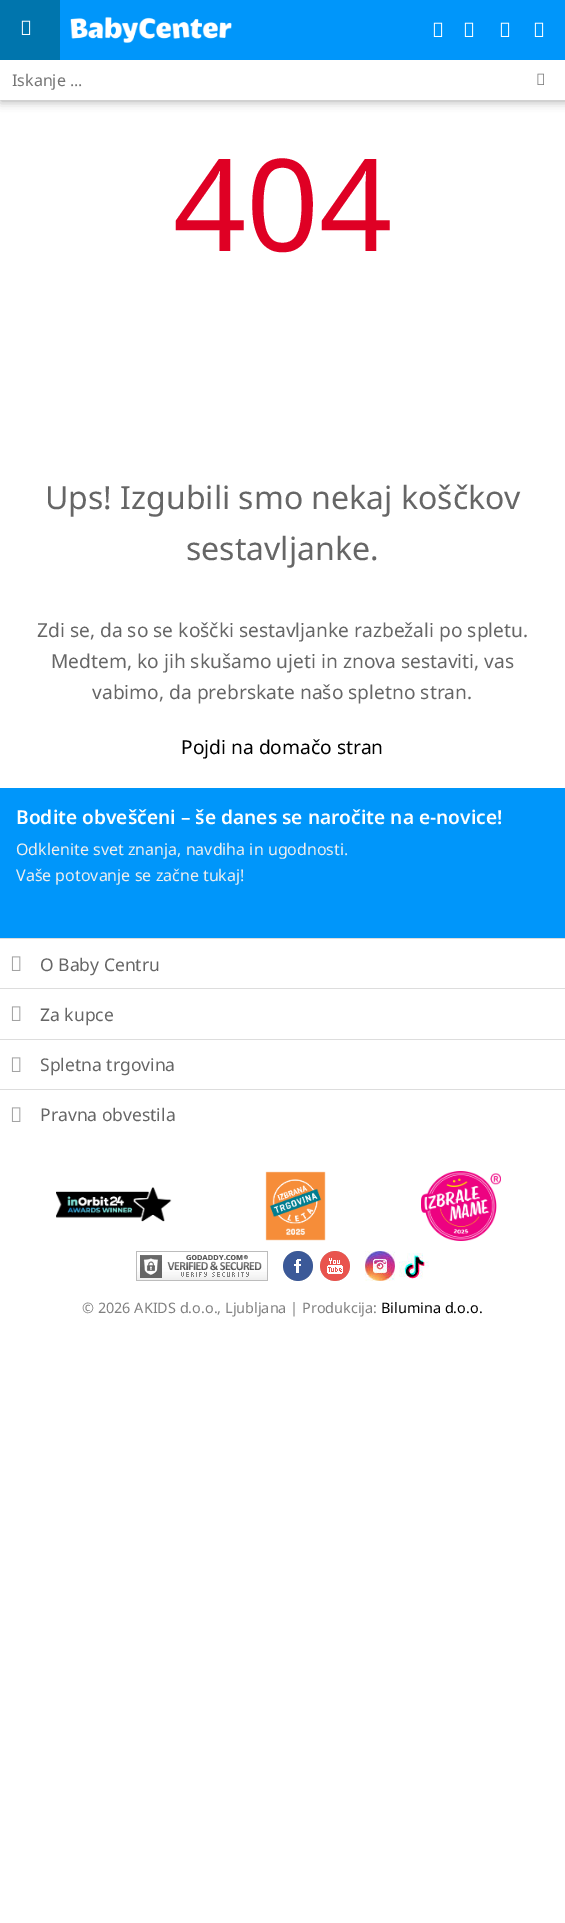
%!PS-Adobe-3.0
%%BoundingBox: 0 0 565 1923
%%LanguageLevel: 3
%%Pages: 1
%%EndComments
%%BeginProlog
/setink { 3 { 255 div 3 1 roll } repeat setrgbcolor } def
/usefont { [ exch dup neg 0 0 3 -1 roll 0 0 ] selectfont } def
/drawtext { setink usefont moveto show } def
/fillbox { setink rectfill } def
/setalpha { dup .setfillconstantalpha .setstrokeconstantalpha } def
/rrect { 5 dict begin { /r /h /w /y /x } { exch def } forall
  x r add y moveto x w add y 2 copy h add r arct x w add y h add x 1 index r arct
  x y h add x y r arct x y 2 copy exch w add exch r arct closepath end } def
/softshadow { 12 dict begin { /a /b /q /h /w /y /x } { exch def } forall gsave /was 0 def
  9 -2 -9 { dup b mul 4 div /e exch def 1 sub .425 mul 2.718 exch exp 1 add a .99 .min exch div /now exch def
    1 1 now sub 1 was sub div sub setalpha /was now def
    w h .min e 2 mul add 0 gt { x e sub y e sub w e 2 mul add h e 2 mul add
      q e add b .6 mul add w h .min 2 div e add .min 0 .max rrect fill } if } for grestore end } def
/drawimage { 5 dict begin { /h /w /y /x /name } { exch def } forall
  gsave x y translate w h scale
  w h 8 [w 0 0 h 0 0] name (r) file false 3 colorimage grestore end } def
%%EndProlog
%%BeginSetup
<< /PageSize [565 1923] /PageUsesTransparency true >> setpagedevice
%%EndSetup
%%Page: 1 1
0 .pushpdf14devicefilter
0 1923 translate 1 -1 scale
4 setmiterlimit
0 0 565 1923 255 255 255 fillbox
0 0 0 setink
1 1 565 100 0 5 0.35 softshadow
60 0 505 60 0 150 250 fillbox
0 0 60 60 0 117 173 fillbox
(assets/img1.rgb) 21 20 10 15 drawimage
(assets/img2.rgb) 70 16 162 27 drawimage
(assets/img3.rgb) 433 22 10 15 drawimage
(assets/img3.rgb) 464 22 10 15 drawimage
(assets/img3.rgb) 500 22 10 15 drawimage
(assets/img3.rgb) 534 22 10 15 drawimage
0 60 565 40 255 255 255 fillbox
(Iskanje ...) 12 86 /NotoSans-Regular 16 117 117 117 drawtext
(assets/img4.rgb) 537 73 7 12 drawimage
(404) 173 251 /NotoSans-Regular 128 223 0 36 drawtext
(Ups! Izgubili smo nekaj koščkov) 45 509 /NotoSans-Regular 32 102 102 102 drawtext
(sestavljanke.) 186 560 /NotoSans-Regular 32 102 102 102 drawtext
(Zdi se, da so se koščki sestavljanke razbežali po spletu.) 37 637 /NotoSans-Regular 19.2 102 102 102 drawtext
(Medtem, ko jih skušamo ujeti in znova sestaviti, vas) 51 668 /NotoSans-Regular 19.2 102 102 102 drawtext
(vabimo, da prebrskate našo spletno stran.) 92 699 /NotoSans-Regular 19.2 102 102 102 drawtext
(Pojdi na domačo stran) 181 754 /NotoSans-Regular 19.2 0 0 0 drawtext
0 788 565 150 0 150 250 fillbox
(Bodite obveščeni – še danes se naročite na e-novice!) 16 824 /NotoSans-SemiBold 19.2 255 255 255 drawtext
(Odklenite svet znanja, navdiha in ugodnosti.) 16 855 /NotoSans-Regular 16 238 238 238 drawtext
(Vaše potovanje se začne tukaj!) 16 881 /NotoSans-Regular 16 238 238 238 drawtext
0 938 565 1 221 221 221 fillbox
(assets/img5.rgb) 11 956 10 15 drawimage
(O Baby Centru) 40 971 /NotoSans-Regular 17.5 102 102 102 drawtext
0 988 565 1 221 221 221 fillbox
(assets/img5.rgb) 11 1006 10 15 drawimage
(Za kupce) 40 1021 /NotoSans-Regular 17.5 102 102 102 drawtext
0 1039 565 1 221 221 221 fillbox
(assets/img5.rgb) 11 1057 10 15 drawimage
(Spletna trgovina) 40 1071 /NotoSans-Regular 17.5 102 102 102 drawtext
0 1089 565 1 221 221 221 fillbox
(assets/img5.rgb) 11 1107 10 15 drawimage
(Pravna obvestila) 40 1121 /NotoSans-Regular 17.5 102 102 102 drawtext
(assets/img6.rgb) 56 1187 116 35 drawimage
(assets/img7.rgb) 265 1171 61 70 drawimage
(assets/img8.rgb) 421 1171 80 70 drawimage
(assets/img9.rgb) 136 1251 132 30 drawimage
(assets/img10.rgb) 283 1251 30 30 drawimage
(assets/img11.rgb) 320 1251 30 30 drawimage
(assets/img12.rgb) 365 1251 30 30 drawimage
(assets/img13.rgb) 399 1253 30 26 drawimage
(© 2026 AKIDS d.o.o., Ljubljana | Produkcija:) 82 1313 /NotoSans-Regular 14.4 128 128 128 drawtext
(Bilumina d.o.o.) 381 1313 /NotoSans-Regular 14.4 0 0 0 drawtext
.poppdf14devicefilter showpage
%%EOF
